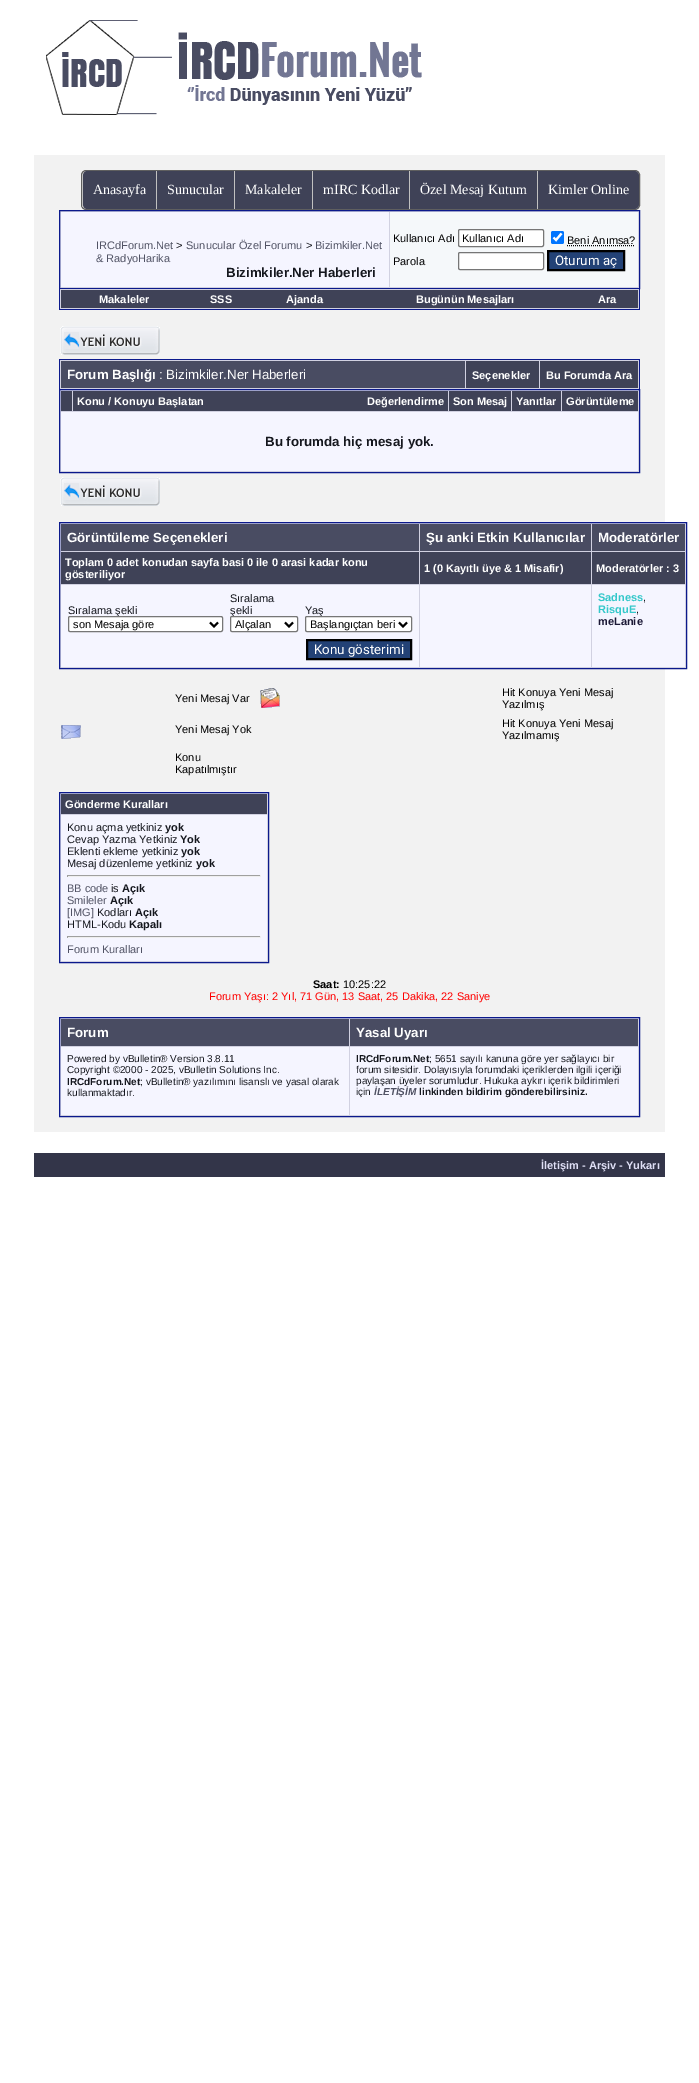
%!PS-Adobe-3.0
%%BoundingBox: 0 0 699 2083
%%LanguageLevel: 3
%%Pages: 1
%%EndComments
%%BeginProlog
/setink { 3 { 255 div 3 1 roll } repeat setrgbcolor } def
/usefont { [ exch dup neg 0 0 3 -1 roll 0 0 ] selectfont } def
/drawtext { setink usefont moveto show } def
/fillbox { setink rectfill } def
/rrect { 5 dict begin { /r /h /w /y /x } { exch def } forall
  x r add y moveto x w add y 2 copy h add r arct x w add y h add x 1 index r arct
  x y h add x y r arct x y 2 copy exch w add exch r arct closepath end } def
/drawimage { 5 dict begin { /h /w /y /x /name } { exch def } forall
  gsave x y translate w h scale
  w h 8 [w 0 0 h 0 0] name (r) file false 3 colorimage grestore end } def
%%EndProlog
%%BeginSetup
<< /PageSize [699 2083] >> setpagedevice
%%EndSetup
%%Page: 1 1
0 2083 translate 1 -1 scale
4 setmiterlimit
0 0 699 2083 255 255 255 fillbox
(assets/img1.rgb) 46 20 376 95 drawimage
34 155 631 977 242 242 242 fillbox
222 222 222 setink
81.5 170.5 558 39 4.5 rrect gsave fill grestore
95 95 95 setink
stroke
63 66 87 setink
87 171 moveto 156 171 lineto 156 209 lineto 87 209 lineto 85 209 83 207 83 204 curveto 83 176 lineto 83 173 85 171 87 171 curveto closepath fill
82 174 1 33 192 192 192 fillbox
(Anasayfa) 93 194 /LiberationSerif-Regular 14 255 255 255 drawtext
157 171 77 38 63 66 87 fillbox
156 171 1 38 192 192 192 fillbox
(Sunucular) 167 194 /LiberationSerif-Regular 14 255 255 255 drawtext
235 171 77 38 63 66 87 fillbox
234 171 1 38 192 192 192 fillbox
(Makaleler) 245 194 /LiberationSerif-Regular 14 255 255 255 drawtext
313 171 96 38 63 66 87 fillbox
312 171 1 38 192 192 192 fillbox
(mIRC Kodlar) 323 194 /LiberationSerif-Regular 14 255 255 255 drawtext
410 171 127 38 63 66 87 fillbox
409 171 1 38 192 192 192 fillbox
(Özel Mesaj Kutum) 420 194 /LiberationSerif-Regular 14 255 255 255 drawtext
63 66 87 setink
538 171 moveto 634 171 lineto 637 171 639 173 639 176 curveto 639 204 lineto 639 207 637 209 634 209 curveto 538 209 lineto closepath fill
537 171 1 38 192 192 192 fillbox
(Kimler Online) 548 194 /LiberationSerif-Regular 14 255 255 255 drawtext
209 209 225 setink
59.5 210.5 moveto 639.5 210.5 lineto 639.5 288.5 lineto 59.5 288.5 lineto closepath gsave fill grestore
11 25 140 setink
stroke
61 212 328 75 245 245 255 fillbox
(IRCdForum.Net) 96 249 /LiberationSans-Regular 11 81 83 101 drawtext
(>) 176 249 /LiberationSans-Regular 11 21 23 30 drawtext
(Sunucular Özel Forumu) 186 249 /LiberationSans-Regular 11 81 83 101 drawtext
(>) 306 249 /LiberationSans-Regular 11 21 23 30 drawtext
(Bizimkiler.Net) 315 249 /LiberationSans-Regular 11 81 83 101 drawtext
(& RadyoHarika) 96 262 /LiberationSans-Regular 11 81 83 101 drawtext
(Bizimkiler.Ner Haberleri) 226 277 /LiberationSans-Bold 13.3 21 23 30 drawtext
390 212 248 75 245 248 250 fillbox
(Kullanıcı Adı) 393 242 /LiberationSans-Regular 11 0 0 0 drawtext
255 255 255 setink
458.5 229.5 85 17 1.5 rrect gsave fill grestore
118 118 118 setink
stroke
(Kullanıcı Adı) 462 242 /LiberationSans-Regular 11 0 0 0 drawtext
0 117 255 setink
551 231 13 13 2 rrect fill
255 255 255 setink
2.1 setlinewidth
553.5 237.5 moveto 556 240 lineto 561.5 233.5 lineto stroke
(Beni Anımsa?) 567 244 /LiberationSans-Regular 11 0 0 0 drawtext
1 setlinewidth
[1 1] 0 setdash
567 245.5 moveto 635 245.5 lineto stroke
(Parola) 393 265 /LiberationSans-Regular 11 0 0 0 drawtext
255 255 255 setink
458.5 252.5 85 17 1.5 rrect gsave fill grestore
118 118 118 setink
[] 0 setdash
stroke
35 66 118 setink
548 251 moveto 624 251 lineto 624 270 lineto 548 270 lineto closepath gsave fill grestore
0 0 0 setink
2 setlinewidth
stroke
(Oturum aç) 555 265 /Roboto-Regular 13.3 255 255 255 drawtext
60 289 579 20 209 209 225 fillbox
639 289 1 21 11 25 140 fillbox
59 309 581 1 11 25 140 fillbox
59 289 1 21 11 25 140 fillbox
61 290 577 18 63 66 87 fillbox
(Makaleler) 99 303 /LiberationSans-Bold 11 255 255 255 drawtext
(SSS) 210 303 /LiberationSans-Bold 11 255 255 255 drawtext
(Ajanda) 286 303 /LiberationSans-Bold 11 255 255 255 drawtext
(Bugünün Mesajları) 416 303 /LiberationSans-Bold 11 255 255 255 drawtext
(Ara) 598 303 /LiberationSans-Bold 11 255 255 255 drawtext
(assets/img2.rgb) 60 326 100 29 drawimage
60 360 579 29 209 209 225 fillbox
59 359 581 1 11 25 140 fillbox
639 359 1 30 11 25 140 fillbox
59 359 1 30 11 25 140 fillbox
61 361 404 27 73 76 98 fillbox
(Forum Başlığı) 67 379 /LiberationSans-Bold 13.3 255 255 255 drawtext
(: Bizimkiler.Ner Haberleri) 159 379 /LiberationSans-Regular 13.3 255 255 255 drawtext
466 361 73 27 63 66 87 fillbox
(Seçenekler) 472 379 /LiberationSans-Bold 11 255 255 255 drawtext
540 361 98 27 63 66 87 fillbox
(Bu Forumda Ara) 546 379 /LiberationSans-Bold 11 255 255 255 drawtext
209 209 225 setink
59.5 389.5 moveto 639.5 389.5 lineto 639.5 472.5 lineto 59.5 472.5 lineto closepath gsave fill grestore
11 25 140 setink
1 setlinewidth
stroke
61 391 11 20 63 66 87 fillbox
73 391 375 20 63 66 87 fillbox
(Konu / Konuyu Başlatan) 77 405 /LiberationSans-Bold 11 255 255 255 drawtext
(Değerlendirme) 367 405 /LiberationSans-Bold 11 255 255 255 drawtext
449 391 62 20 63 66 87 fillbox
(Son Mesaj) 453 405 /LiberationSans-Bold 11 255 255 255 drawtext
512 391 49 20 63 66 87 fillbox
(Yanıtlar) 516 405 /LiberationSans-Bold 11 255 255 255 drawtext
562 391 76 20 63 66 87 fillbox
(Görüntüleme) 566 405 /LiberationSans-Bold 11 255 255 255 drawtext
61 412 577 59 245 245 255 fillbox
(Bu forumda hiç mesaj yok.) 265 446 /LiberationSans-Bold 13.3 21 23 30 drawtext
(assets/img2.rgb) 60 477 100 29 drawimage
209 209 225 setink
59.5 522.5 moveto 686.5 522.5 lineto 686.5 668.5 lineto 59.5 668.5 lineto closepath gsave fill grestore
11 25 140 setink
stroke
61 524 358 27 73 76 98 fillbox
(Görüntüleme Seçenekleri) 67 542 /LiberationSans-Bold 13.3 255 255 255 drawtext
420 524 171 27 73 76 98 fillbox
(Şu anki Etkin Kullanıcılar) 426 542 /LiberationSans-Bold 13.3 255 255 255 drawtext
592 524 93 27 73 76 98 fillbox
(Moderatörler) 598 542 /LiberationSans-Bold 13.3 255 255 255 drawtext
61 552 358 32 63 66 87 fillbox
(Toplam 0 adet konudan sayfa basi 0 ile 0 arasi kadar konu) 65 566 /LiberationSans-Bold 11 255 255 255 drawtext
(gösteriliyor) 65 578 /LiberationSans-Bold 11 255 255 255 drawtext
420 552 171 32 63 66 87 fillbox
(1 \(0 Kayıtlı üye & 1 Misafir\)) 424 572 /LiberationSans-Bold 11 255 255 255 drawtext
592 552 93 32 63 66 87 fillbox
(Moderatörler : 3) 596 572 /LiberationSans-Bold 11 255 255 255 drawtext
61 585 358 82 245 245 255 fillbox
(Sıralama şekli) 68 614 /LiberationSans-Regular 11 21 23 30 drawtext
255 255 255 setink
68.5 616.5 154 15 1.5 rrect gsave fill grestore
118 118 118 setink
stroke
0 0 0 setink
2 setlinewidth
210 622.5 moveto 214 626.5 lineto 218 622.5 lineto stroke
(son Mesaja göre) 73 628 /LiberationSans-Regular 11 0 0 0 drawtext
(Sıralama) 230 602 /LiberationSans-Regular 11 21 23 30 drawtext
(şekli) 230 614 /LiberationSans-Regular 11 21 23 30 drawtext
255 255 255 setink
230.5 616.5 67 15 1.5 rrect gsave fill grestore
118 118 118 setink
1 setlinewidth
stroke
0 0 0 setink
2 setlinewidth
285 622.5 moveto 289 626.5 lineto 293 622.5 lineto stroke
(Alçalan) 235 628 /LiberationSans-Regular 11 0 0 0 drawtext
(Yaş) 305 614 /LiberationSans-Regular 11 21 23 30 drawtext
255 255 255 setink
305.5 616.5 106 15 1.5 rrect gsave fill grestore
118 118 118 setink
1 setlinewidth
stroke
0 0 0 setink
2 setlinewidth
399 622.5 moveto 403 626.5 lineto 407 622.5 lineto stroke
(Başlangıçtan beri) 310 628 /LiberationSans-Regular 11 0 0 0 drawtext
35 66 118 setink
307 640 moveto 411 640 lineto 411 659 lineto 307 659 lineto closepath gsave fill grestore
0 0 0 setink
stroke
(Konu gösterimi) 314 654 /Roboto-Regular 13.3 255 255 255 drawtext
420 585 171 82 245 245 255 fillbox
592 585 93 82 245 245 255 fillbox
(Sadness) 598 601 /LiberationSans-Bold 11 52 200 202 drawtext
(,) 643 601 /LiberationSans-Regular 11 21 23 30 drawtext
(RisquE) 598 613 /LiberationSans-Bold 11 52 200 202 drawtext
(,) 636 613 /LiberationSans-Regular 11 21 23 30 drawtext
(meLanie) 598 625 /LiberationSans-Bold 11 27 24 54 drawtext
(Yeni Mesaj Var) 175 702 /LiberationSans-Regular 11 0 0 0 drawtext
(assets/img3.rgb) 260 688 20 20 drawimage
(Hit Konuya Yeni Mesaj) 502 696 /LiberationSans-Regular 11 0 0 0 drawtext
(Yazılmış) 502 708 /LiberationSans-Regular 11 0 0 0 drawtext
(assets/img4.rgb) 61 725 20 14 drawimage
(Yeni Mesaj Yok) 175 733 /LiberationSans-Regular 11 0 0 0 drawtext
(Hit Konuya Yeni Mesaj) 502 727 /LiberationSans-Regular 11 0 0 0 drawtext
(Yazılmamış) 502 739 /LiberationSans-Regular 11 0 0 0 drawtext
(Konu) 175 761 /LiberationSans-Regular 11 0 0 0 drawtext
(Kapatılmıştır) 175 773 /LiberationSans-Regular 11 0 0 0 drawtext
209 209 225 setink
59.5 792.5 moveto 268.5 792.5 lineto 268.5 962.5 lineto 59.5 962.5 lineto closepath gsave fill grestore
11 25 140 setink
1 setlinewidth
stroke
61 794 206 20 63 66 87 fillbox
(Gönderme Kuralları) 65 808 /LiberationSans-Bold 11 255 255 255 drawtext
61 815 206 146 245 245 255 fillbox
(Konu açma yetkiniz) 67 831 /LiberationSans-Regular 11 21 23 30 drawtext
(yok) 165 831 /LiberationSans-Bold 11 21 23 30 drawtext
(Cevap Yazma Yetkiniz) 67 843 /LiberationSans-Regular 11 21 23 30 drawtext
(Yok) 180 843 /LiberationSans-Bold 11 21 23 30 drawtext
(Eklenti ekleme yetkiniz) 67 855 /LiberationSans-Regular 11 21 23 30 drawtext
(yok) 181 855 /LiberationSans-Bold 11 21 23 30 drawtext
(Mesaj düzenleme yetkiniz) 67 867 /LiberationSans-Regular 11 21 23 30 drawtext
(yok) 196 867 /LiberationSans-Bold 11 21 23 30 drawtext
67 875 194 1 159 159 159 fillbox
260 875 1 2 238 238 238 fillbox
67 876 194 1 238 238 238 fillbox
67 875 1 2 159 159 159 fillbox
(BB code) 67 892 /LiberationSans-Regular 11 81 83 101 drawtext
(is) 111 892 /LiberationSans-Regular 11 21 23 30 drawtext
(Açık) 122 892 /LiberationSans-Bold 11 21 23 30 drawtext
(Smileler) 67 904 /LiberationSans-Regular 11 81 83 101 drawtext
(Açık) 110 904 /LiberationSans-Bold 11 21 23 30 drawtext
([IMG]) 67 916 /LiberationSans-Regular 11 81 83 101 drawtext
(Kodları) 97 916 /LiberationSans-Regular 11 21 23 30 drawtext
(Açık) 135 916 /LiberationSans-Bold 11 21 23 30 drawtext
(HTML-Kodu) 67 928 /LiberationSans-Regular 11 21 23 30 drawtext
(Kapalı) 129 928 /LiberationSans-Bold 11 21 23 30 drawtext
67 936 194 1 159 159 159 fillbox
260 936 1 2 238 238 238 fillbox
67 937 194 1 238 238 238 fillbox
67 936 1 2 159 159 159 fillbox
(Forum Kuralları) 67 953 /LiberationSans-Regular 11 81 83 101 drawtext
(Saat:) 313 988 /LiberationSans-Bold 11 0 0 0 drawtext
(10:25:22) 343 988 /LiberationSans-Regular 11 0 0 0 drawtext
(Forum Yaşı: 2 Yıl, 71 Gün, 13 Saat, 25 Dakika, 22 Saniye) 209 1000 /LiberationSans-Regular 11 255 0 0 drawtext
209 209 225 setink
59.5 1017.5 moveto 639.5 1017.5 lineto 639.5 1116.5 lineto 59.5 1116.5 lineto closepath gsave fill grestore
11 25 140 setink
stroke
61 1019 288 27 73 76 98 fillbox
(Forum) 67 1037 /LiberationSans-Bold 13.3 255 255 255 drawtext
350 1019 288 27 73 76 98 fillbox
(Yasal Uyarı) 356 1037 /LiberationSans-Bold 13.3 255 255 255 drawtext
61 1047 288 68 245 245 255 fillbox
(Powered by vBulletin® Version 3.8.11) 67 1062 /LiberationSans-Regular 10 21 23 30 drawtext
(Copyright ©2000 - 2025, vBulletin Solutions Inc.) 67 1073 /LiberationSans-Regular 10 21 23 30 drawtext
(IRCdForum.Net) 67 1085 /LiberationSans-Bold 10 21 23 30 drawtext
(; vBulletin® yazılımını lisanslı ve yasal olarak) 140 1085 /LiberationSans-Regular 10 21 23 30 drawtext
(kullanmaktadır.) 67 1096 /LiberationSans-Regular 10 21 23 30 drawtext
350 1047 288 68 245 245 255 fillbox
(IRCdForum.Net) 356 1062 /LiberationSans-Bold 10 21 23 30 drawtext
(; 5651 sayılı kanuna göre yer sağlayıcı bir) 429 1062 /LiberationSans-Regular 10 21 23 30 drawtext
(forum sitesidir. Dolayısıyla forumdaki içeriklerden ilgili içeriği) 356 1073 /LiberationSans-Regular 10 21 23 30 drawtext
(paylaşan üyeler sorumludur. Hukuka aykırı içerik bildirimleri) 356 1084 /LiberationSans-Regular 10 21 23 30 drawtext
(için) 356 1095 /LiberationSans-Regular 10 21 23 30 drawtext
(İLETİŞİM) 374 1095 /LiberationSans-BoldItalic 10 81 83 101 drawtext
(linkinden bildirim gönderebilirsiniz.) 419 1095 /LiberationSans-Bold 10 21 23 30 drawtext
34 1153 631 24 51 53 73 fillbox
(İletişim - Arşiv - Yukarı) 541 1169 /LiberationSans-Bold 11 224 224 246 drawtext
showpage
%%EOF
